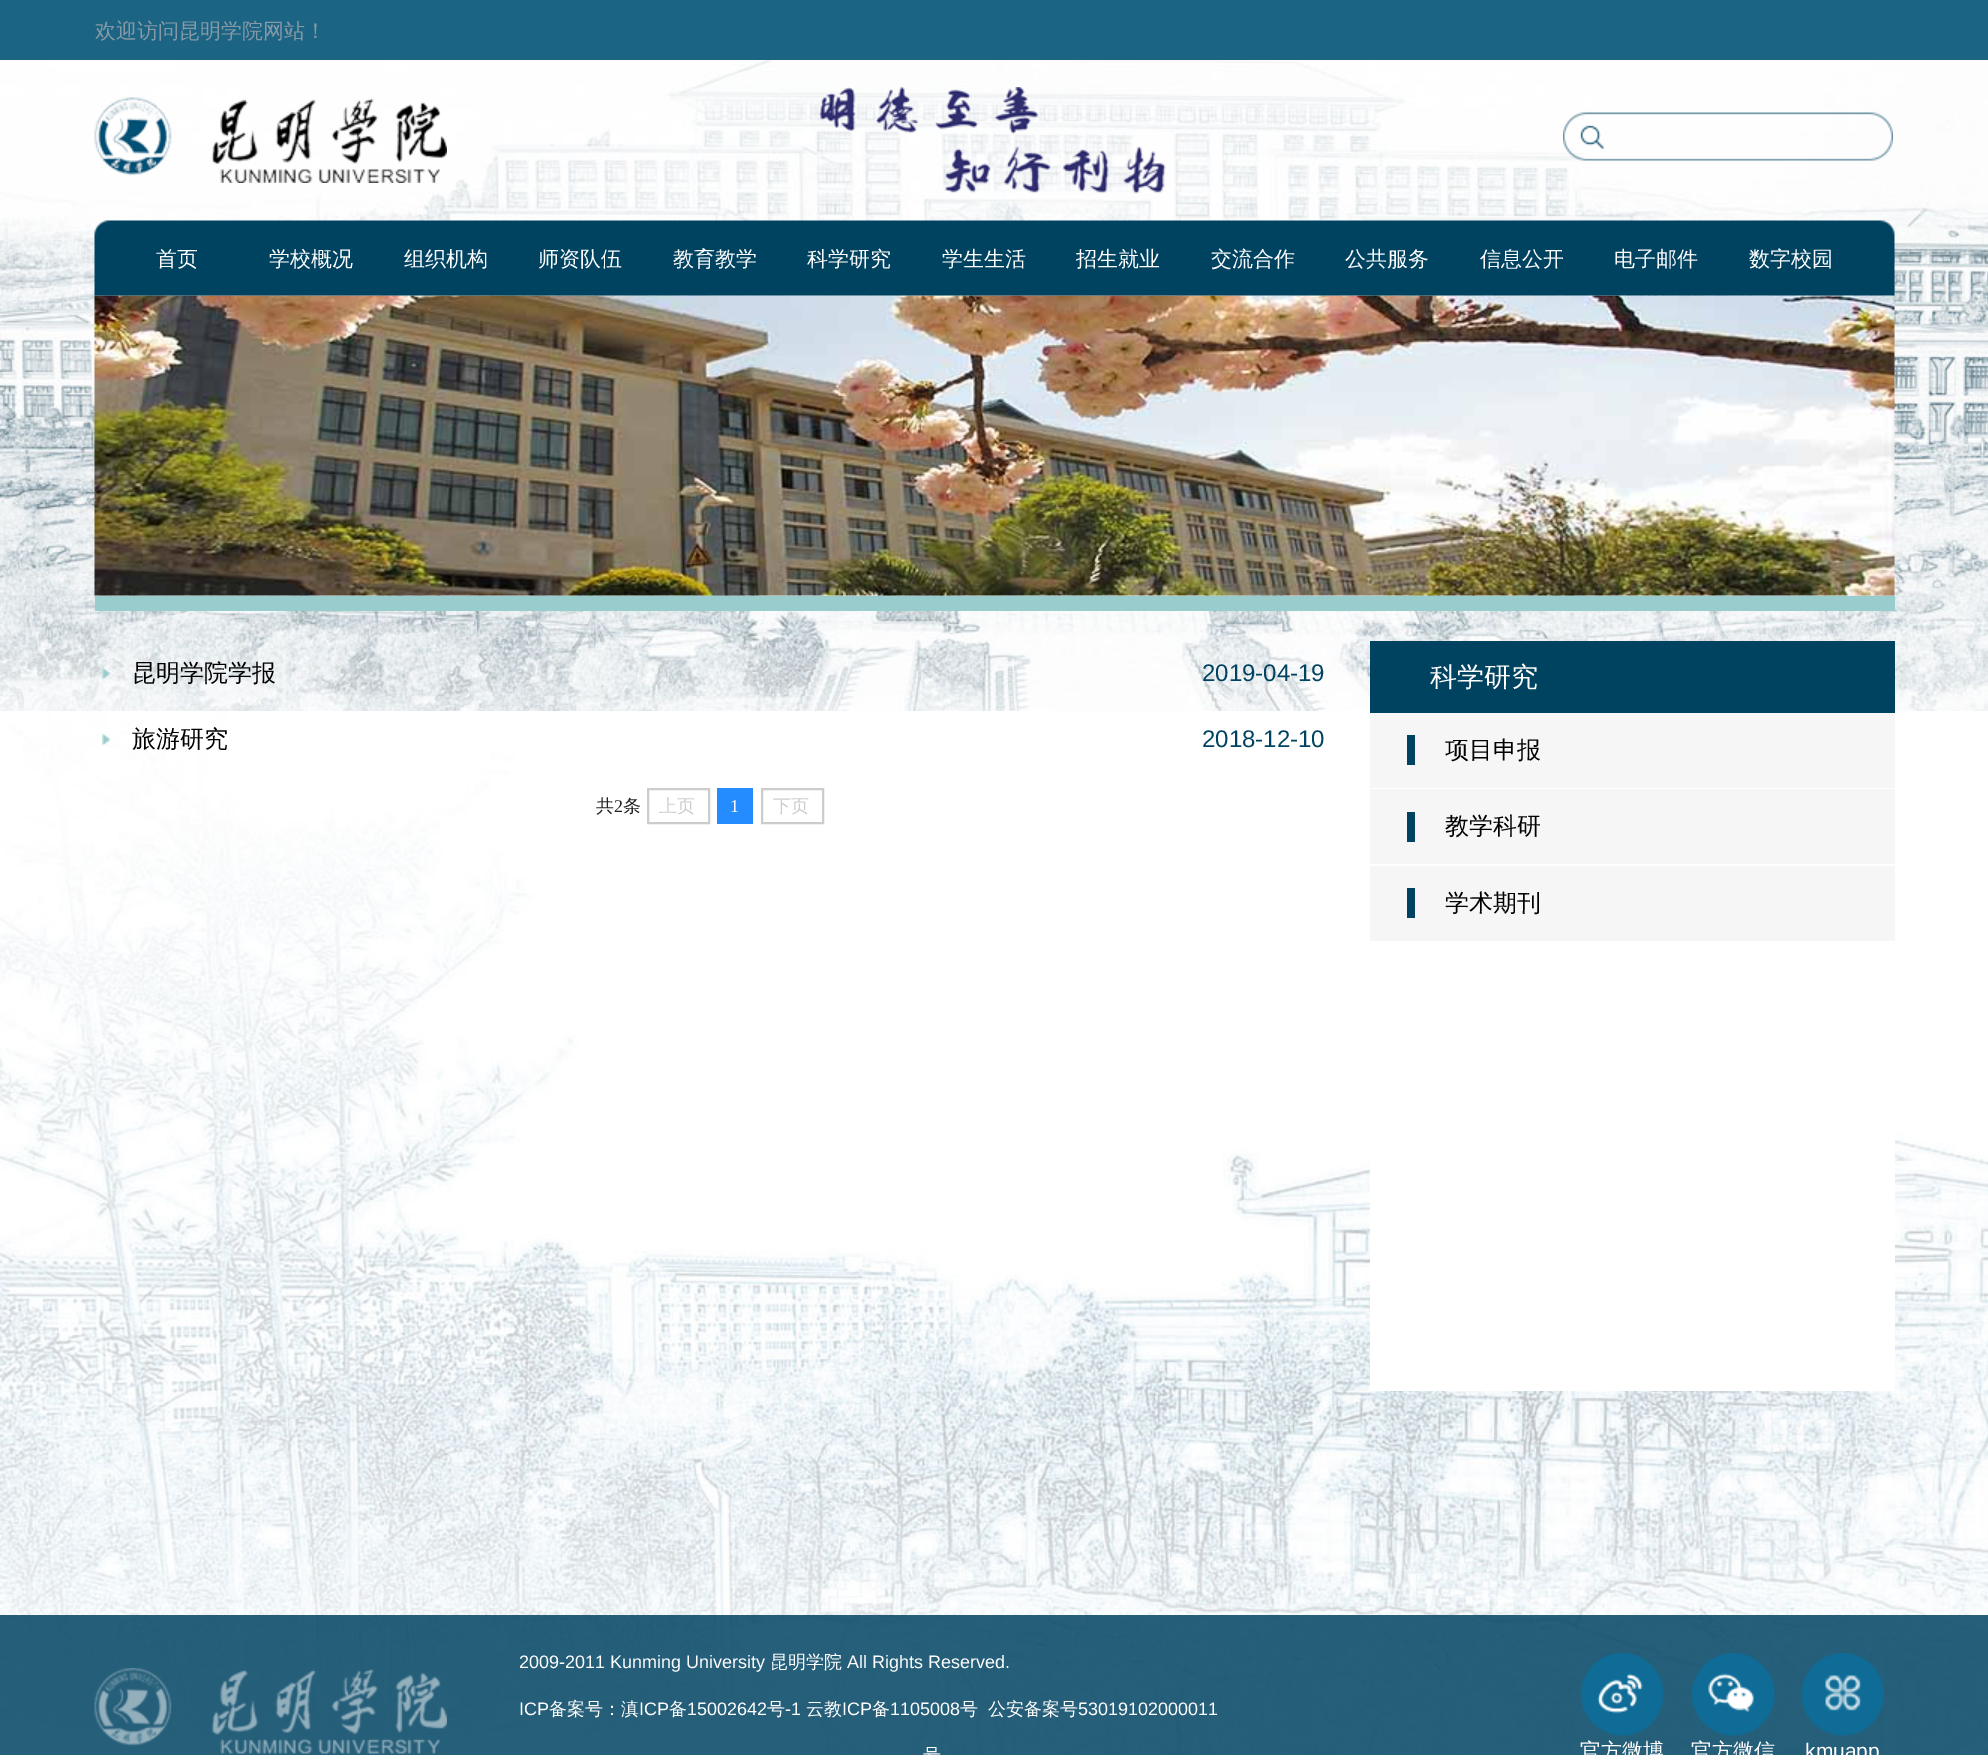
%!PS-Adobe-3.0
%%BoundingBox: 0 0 1988 1755
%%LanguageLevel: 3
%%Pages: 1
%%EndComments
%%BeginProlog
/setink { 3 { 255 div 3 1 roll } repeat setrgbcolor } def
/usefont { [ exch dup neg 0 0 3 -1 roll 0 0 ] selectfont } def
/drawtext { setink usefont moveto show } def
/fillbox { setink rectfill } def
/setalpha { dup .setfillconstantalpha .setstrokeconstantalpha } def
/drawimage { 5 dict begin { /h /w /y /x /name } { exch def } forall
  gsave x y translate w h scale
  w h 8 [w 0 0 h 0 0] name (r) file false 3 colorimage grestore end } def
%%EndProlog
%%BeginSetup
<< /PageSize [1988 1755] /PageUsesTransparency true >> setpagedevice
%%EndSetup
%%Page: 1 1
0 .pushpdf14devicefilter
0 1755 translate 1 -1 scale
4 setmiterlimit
0 0 1988 1755 28 100 131 fillbox
(欢迎访问昆明学院网站！) 95 38 /WenQuanYiZenHei-Medium 21 133 153 166 drawtext
(assets/img1.rgb) 0 60 1988 651 drawimage
(assets/img2.rgb) 0 711 1988 1044 drawimage
(assets/img3.rgb) 819 87 347 107 drawimage
(assets/img4.rgb) 94 97 353 86 drawimage
(assets/img5.rgb) 1563 112 330 49 drawimage
(assets/img7.rgb) 94 295 1801 301 drawimage
(assets/img6.rgb) 94 220 1801 76 drawimage
(首页) 156 266 /WenQuanYiZenHei-Medium 21 255 255 255 drawtext
(学校概况) 269 266 /WenQuanYiZenHei-Medium 21 255 255 255 drawtext
(组织机构) 404 266 /WenQuanYiZenHei-Medium 21 255 255 255 drawtext
(师资队伍) 538 266 /WenQuanYiZenHei-Medium 21 255 255 255 drawtext
(教育教学) 673 266 /WenQuanYiZenHei-Medium 21 255 255 255 drawtext
(科学研究) 807 266 /WenQuanYiZenHei-Medium 21 255 255 255 drawtext
(学生生活) 942 266 /WenQuanYiZenHei-Medium 21 255 255 255 drawtext
(招生就业) 1076 266 /WenQuanYiZenHei-Medium 21 255 255 255 drawtext
(交流合作) 1211 266 /WenQuanYiZenHei-Medium 21 255 255 255 drawtext
(公共服务) 1345 266 /WenQuanYiZenHei-Medium 21 255 255 255 drawtext
(信息公开) 1480 266 /WenQuanYiZenHei-Medium 21 255 255 255 drawtext
(电子邮件) 1614 266 /WenQuanYiZenHei-Medium 21 255 255 255 drawtext
(数字校园) 1749 266 /WenQuanYiZenHei-Medium 21 255 255 255 drawtext
95 596 1800 15 153 204 204 fillbox
(assets/img8.rgb) 102 667 9 13 drawimage
(昆明学院学报) 132 681 /WenQuanYiZenHei-Medium 24 0 0 0 drawtext
(2019-04-19) 1202 681 /LiberationSans-Regular 24 0 67 97 drawtext
(assets/img9.rgb) 102 733 9 13 drawimage
(旅游研究) 132 747 /WenQuanYiZenHei-Medium 24 0 0 0 drawtext
(2018-12-10) 1202 747 /LiberationSans-Regular 24 0 67 97 drawtext
(共) 596 812 /WenQuanYiZenHei-Medium 18 34 34 34 drawtext
(2) 614 812 /LiberationSerif-Regular 18 34 34 34 drawtext
(条) 623 812 /WenQuanYiZenHei-Medium 18 34 34 34 drawtext
204 204 204 setink
2 setlinewidth
648 789 61 34 rectstroke
(上页) 659 812 /WenQuanYiZenHei-Medium 18 204 204 204 drawtext
717 788 36 36 37 140 255 fillbox
(1) 730 812 /LiberationSerif-Regular 18 255 255 255 drawtext
204 204 204 setink
762 789 61 34 rectstroke
(下页) 773 812 /WenQuanYiZenHei-Medium 18 204 204 204 drawtext
1370 1083 525 308 255 255 255 fillbox
1370 641 525 72 0 67 97 fillbox
(科学研究) 1430 686 /WenQuanYiZenHei-Medium 27 255 255 255 drawtext
1370 713 525 75 246 246 246 fillbox
1407 735 8 30 0 67 97 fillbox
(项目申报) 1445 758 /WenQuanYiZenHei-Medium 24 0 0 0 drawtext
1370 789 525 75 246 246 246 fillbox
1407 812 8 30 0 67 97 fillbox
(教学科研) 1445 834 /WenQuanYiZenHei-Medium 24 0 0 0 drawtext
1370 866 525 75 246 246 246 fillbox
1407 888 8 30 0 67 97 fillbox
(学术期刊) 1445 911 /WenQuanYiZenHei-Medium 24 0 0 0 drawtext
0.85 setalpha
0 1615 1988 140 0 67 98 fillbox
1 setalpha
(assets/img10.rgb) 94 1668 353 86 drawimage
(2009-2011 Kunming University) 519 1668 /LiberationSans-Regular 18 255 255 255 drawtext
(昆明学院) 770 1668 /WenQuanYiZenHei-Medium 18 255 255 255 drawtext
(All Rights Reserved.) 847 1668 /LiberationSans-Regular 18 255 255 255 drawtext
(ICP) 519 1715 /LiberationSans-Regular 18 255 255 255 drawtext
(备案号：滇) 549 1715 /WenQuanYiZenHei-Medium 18 255 255 255 drawtext
(ICP) 639 1715 /LiberationSans-Regular 18 255 255 255 drawtext
(备) 669 1715 /WenQuanYiZenHei-Medium 18 255 255 255 drawtext
(15002642) 687 1715 /LiberationSans-Regular 18 255 255 255 drawtext
(号) 767 1715 /WenQuanYiZenHei-Medium 18 255 255 255 drawtext
(-1) 785 1715 /LiberationSans-Regular 18 255 255 255 drawtext
(云教) 806 1715 /WenQuanYiZenHei-Medium 18 255 255 255 drawtext
(ICP) 842 1715 /LiberationSans-Regular 18 255 255 255 drawtext
(备) 872 1715 /WenQuanYiZenHei-Medium 18 255 255 255 drawtext
(1105008) 890 1715 /LiberationSans-Regular 18 255 255 255 drawtext
(号) 960 1715 /WenQuanYiZenHei-Medium 18 255 255 255 drawtext
(公安备案号) 988 1715 /WenQuanYiZenHei-Medium 18 255 255 255 drawtext
(53019102000011) 1078 1715 /LiberationSans-Regular 18 255 255 255 drawtext
(号) 923 1761 /WenQuanYiZenHei-Medium 18 255 255 255 drawtext
(assets/img11.rgb) 1581 1653 83 83 drawimage
(官方微博) 1580 1758 /WenQuanYiZenHei-Medium 21 255 255 255 drawtext
(assets/img12.rgb) 1692 1653 83 83 drawimage
(官方微信) 1691 1758 /WenQuanYiZenHei-Medium 21 255 255 255 drawtext
(assets/img13.rgb) 1801 1653 83 83 drawimage
(kmuapp) 1805 1758 /LiberationSans-Regular 21 255 255 255 drawtext
.poppdf14devicefilter showpage
%%EOF
